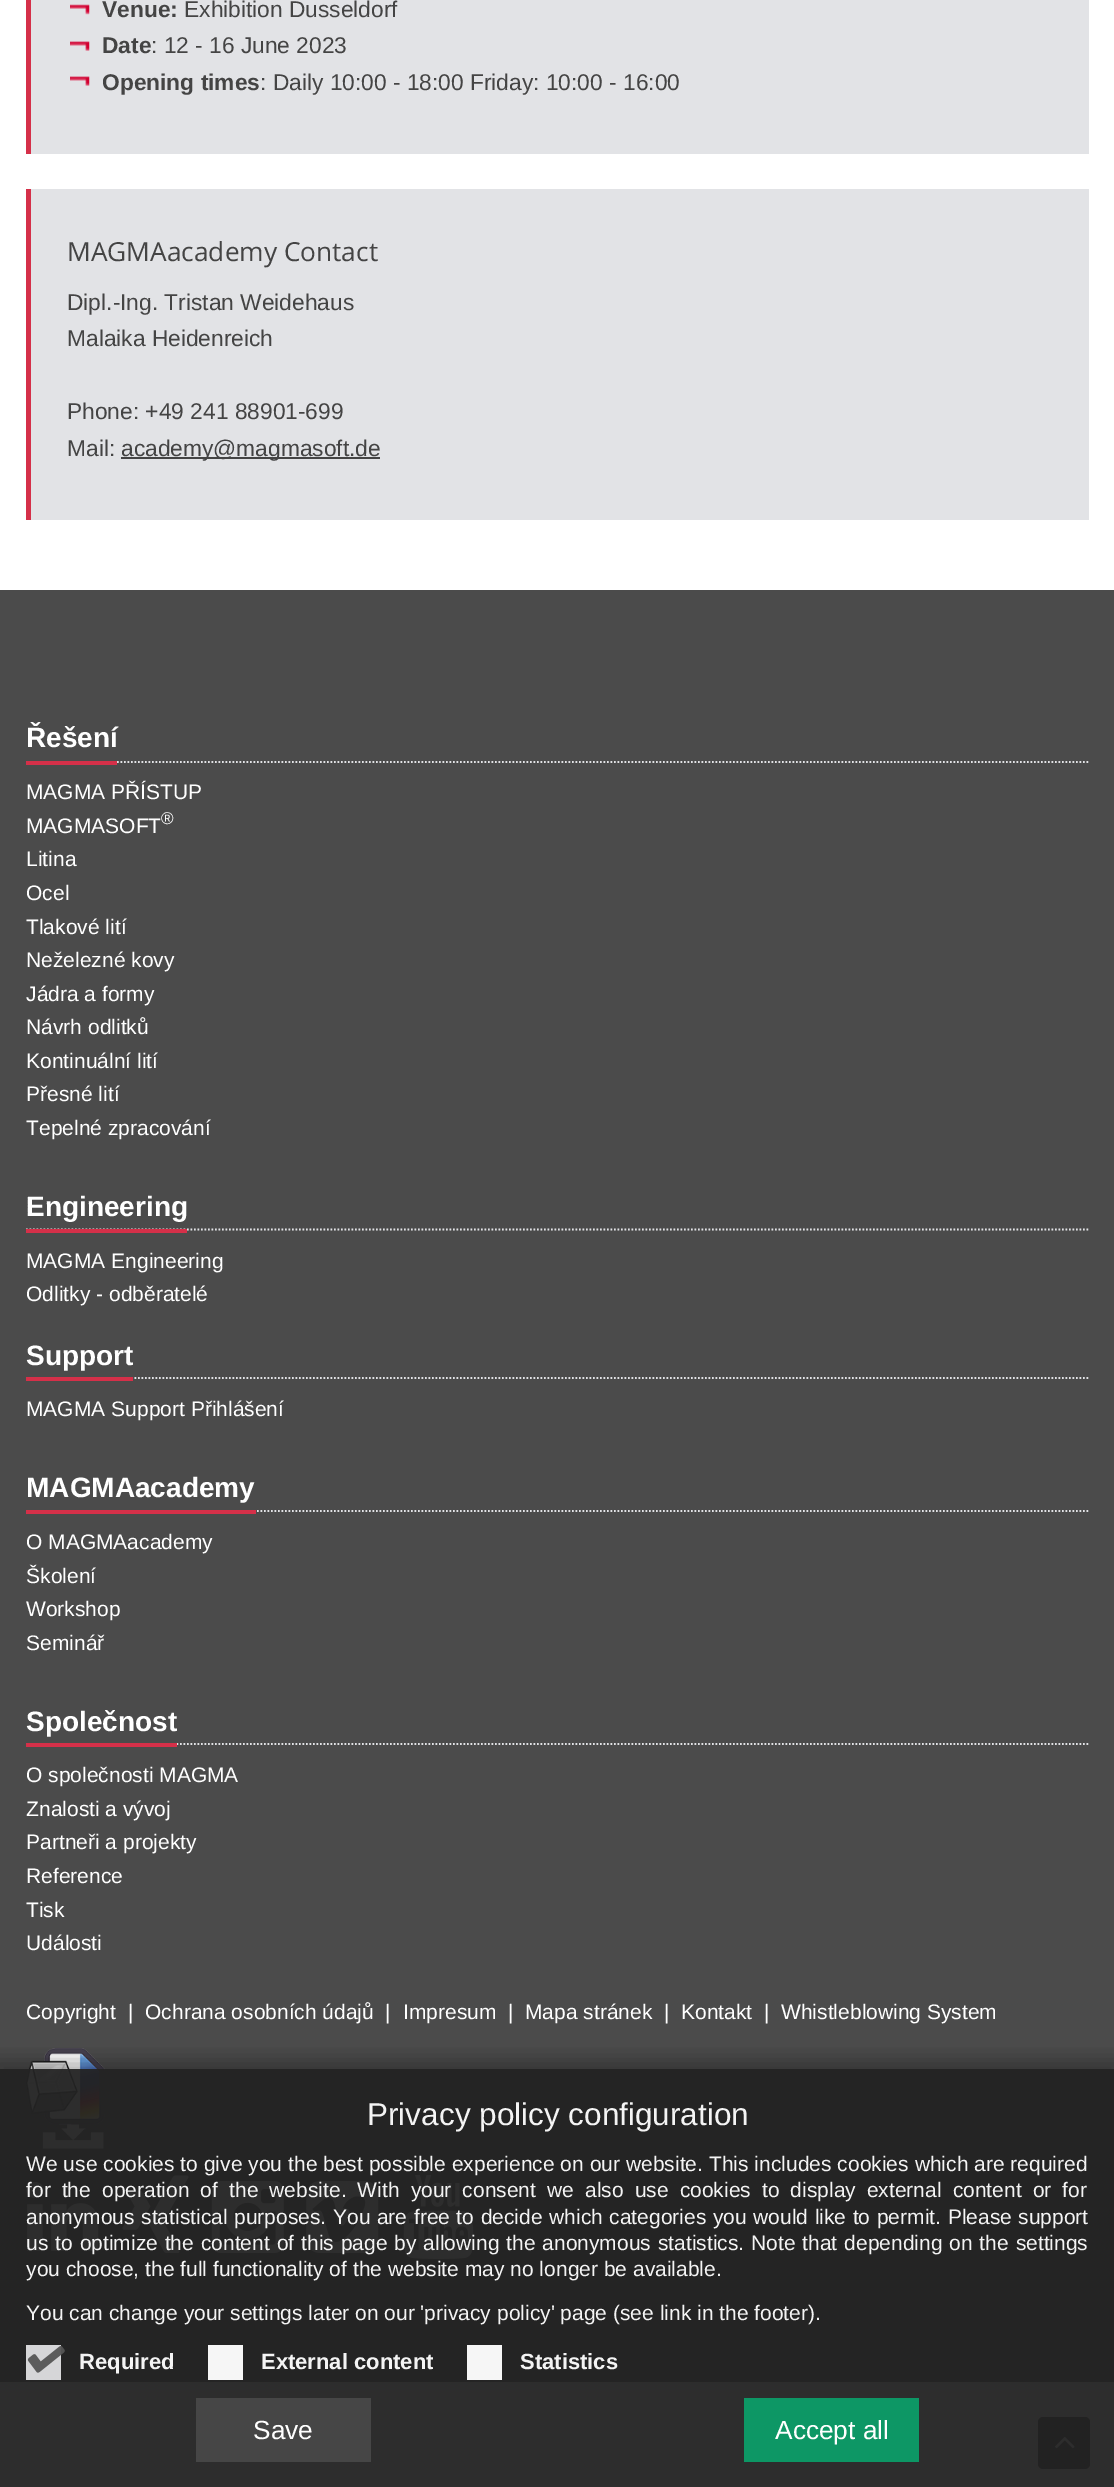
%!PS-Adobe-3.0
%%BoundingBox: 0 0 1114 2487
%%LanguageLevel: 3
%%Pages: 1
%%EndComments
%%BeginProlog
/setink { 3 { 255 div 3 1 roll } repeat setrgbcolor } def
/usefont { [ exch dup neg 0 0 3 -1 roll 0 0 ] selectfont } def
/drawtext { setink usefont moveto show } def
/fillbox { setink rectfill } def
/setalpha { dup .setfillconstantalpha .setstrokeconstantalpha } def
/rrect { 5 dict begin { /r /h /w /y /x } { exch def } forall
  x r add y moveto x w add y 2 copy h add r arct x w add y h add x 1 index r arct
  x y h add x y r arct x y 2 copy exch w add exch r arct closepath end } def
/softshadow { 12 dict begin { /a /b /q /h /w /y /x } { exch def } forall gsave /was 0 def
  9 -2 -9 { dup b mul 4 div /e exch def 1 sub .425 mul 2.718 exch exp 1 add a .99 .min exch div /now exch def
    1 1 now sub 1 was sub div sub setalpha /was now def
    w h .min e 2 mul add 0 gt { x e sub y e sub w e 2 mul add h e 2 mul add
      q e add b .6 mul add w h .min 2 div e add .min 0 .max rrect fill } if } for grestore end } def
/drawimage { 5 dict begin { /h /w /y /x /name } { exch def } forall
  gsave x y translate w h scale
  w h 8 [w 0 0 h 0 0] name (r) file false 3 colorimage grestore end } def
%%EndProlog
%%BeginSetup
<< /PageSize [1114 2487] /PageUsesTransparency true >> setpagedevice
%%EndSetup
%%Page: 1 1
0 .pushpdf14devicefilter
0 2487 translate 1 -1 scale
4 setmiterlimit
0 0 1114 2487 255 255 255 fillbox
31 0 1058 154 226 227 230 fillbox
26 0 5 154 213 48 73 fillbox
(assets/img1.rgb) 70 4 20 11 drawimage
(Venue:) 102 17 /LiberationSans-Bold 22.75 68 68 68 drawtext
(Exhibition Dusseldorf) 184 17 /LiberationSans-Regular 22.75 68 68 68 drawtext
(assets/img2.rgb) 70 41 20 10 drawimage
(Date) 102 53 /LiberationSans-Bold 22.75 68 68 68 drawtext
(: 12 - 16 June 2023) 151 53 /LiberationSans-Regular 22.75 68 68 68 drawtext
(assets/img2.rgb) 70 76 20 10 drawimage
(Opening times) 102 90 /LiberationSans-Bold 22.75 68 68 68 drawtext
(: Daily 10:00 - 18:00 Friday: 10:00 - 16:00) 260 90 /LiberationSans-Regular 22.75 68 68 68 drawtext
31 189 1058 331 226 227 230 fillbox
26 189 5 331 213 48 73 fillbox
(MAGMAacademy Contact) 67 261 /OpenSans-Regular 26.25 68 68 68 drawtext
(Dipl.-Ing. Tristan Weidehaus) 67 310 /LiberationSans-Regular 22.75 68 68 68 drawtext
(Malaika Heidenreich) 67 346 /LiberationSans-Regular 22.75 68 68 68 drawtext
(Phone: +49 241 88901-699) 67 419 /LiberationSans-Regular 22.75 68 68 68 drawtext
(Mail:) 67 456 /LiberationSans-Regular 22.75 68 68 68 drawtext
121 457 259 2 68 68 68 fillbox
(academy@magmasoft.de) 121 456 /LiberationSans-Regular 22.75 68 68 68 drawtext
0 590 1114 1792 75 75 75 fillbox
226 227 230 setink
1.8 setlinewidth
[1.75 1.75] 0 setdash
26 762 moveto 1088.5 762 lineto stroke
26 761 91 4 213 48 73 fillbox
(Řešení) 26 747 /LiberationSans-Bold 28 255 255 255 drawtext
(MAGMA PŘÍSTUP) 26 799 /LiberationSans-Regular 21 255 255 255 drawtext
(MAGMASOFT) 26 833 /LiberationSans-Regular 21 255 255 255 drawtext
(®) 161 824 /LiberationSans-Regular 17 255 255 255 drawtext
(Litina) 26 866 /LiberationSans-Regular 21 255 255 255 drawtext
(Ocel) 26 900 /LiberationSans-Regular 21 255 255 255 drawtext
(Tlakové lití) 26 934 /LiberationSans-Regular 21 255 255 255 drawtext
(Neželezné kovy) 26 967 /LiberationSans-Regular 21 255 255 255 drawtext
(Jádra a formy) 26 1001 /LiberationSans-Regular 21 255 255 255 drawtext
(Návrh odlitků) 26 1034 /LiberationSans-Regular 21 255 255 255 drawtext
(Kontinuální lití) 26 1068 /LiberationSans-Regular 21 255 255 255 drawtext
(Přesné lití) 26 1101 /LiberationSans-Regular 21 255 255 255 drawtext
(Tepelné zpracování) 26 1135 /LiberationSans-Regular 21 255 255 255 drawtext
226 227 230 setink
26 1229.5 moveto 1088.5 1229.5 lineto stroke
26 1229 161 4 213 48 73 fillbox
(Engineering) 26 1216 /LiberationSans-Bold 28 255 255 255 drawtext
(MAGMA Engineering) 26 1268 /LiberationSans-Regular 21 255 255 255 drawtext
(Odlitky - odběratelé) 26 1301 /LiberationSans-Regular 21 255 255 255 drawtext
226 227 230 setink
26 1378 moveto 1088.5 1378 lineto stroke
26 1377 107 4 213 48 73 fillbox
(Support) 26 1365 /LiberationSans-Bold 28 255 255 255 drawtext
(MAGMA Support Přihlášení) 26 1416 /LiberationSans-Regular 21 255 255 255 drawtext
226 227 230 setink
26 1511 moveto 1088.5 1511 lineto stroke
26 1510 230 4 213 48 73 fillbox
(MAGMAacademy) 26 1497 /LiberationSans-Bold 28 255 255 255 drawtext
(O MAGMAacademy) 26 1549 /LiberationSans-Regular 21 255 255 255 drawtext
(Školení) 26 1583 /LiberationSans-Regular 21 255 255 255 drawtext
(Workshop) 26 1616 /LiberationSans-Regular 21 255 255 255 drawtext
(Seminář) 26 1650 /LiberationSans-Regular 21 255 255 255 drawtext
226 227 230 setink
26 1744 moveto 1088.5 1744 lineto stroke
26 1743 151 4 213 48 73 fillbox
(Společnost) 26 1731 /LiberationSans-Bold 28 255 255 255 drawtext
(O společnosti MAGMA) 26 1782 /LiberationSans-Regular 21 255 255 255 drawtext
(Znalosti a vývoj) 26 1816 /LiberationSans-Regular 21 255 255 255 drawtext
(Partneři a projekty) 26 1849 /LiberationSans-Regular 21 255 255 255 drawtext
(Reference) 26 1883 /LiberationSans-Regular 21 255 255 255 drawtext
(Tisk) 26 1917 /LiberationSans-Regular 21 255 255 255 drawtext
(Události) 26 1950 /LiberationSans-Regular 21 255 255 255 drawtext
(Copyright) 26 2019 /LiberationSans-Regular 21 255 255 255 drawtext
(|) 128 2019 /LiberationSans-Regular 21 255 255 255 drawtext
(Ochrana osobních údajů) 145 2019 /LiberationSans-Regular 21 255 255 255 drawtext
(|) 385 2019 /LiberationSans-Regular 21 255 255 255 drawtext
(Impresum) 403 2019 /LiberationSans-Regular 21 255 255 255 drawtext
(|) 508 2019 /LiberationSans-Regular 21 255 255 255 drawtext
(Mapa stránek) 525 2019 /LiberationSans-Regular 21 255 255 255 drawtext
(|) 664 2019 /LiberationSans-Regular 21 255 255 255 drawtext
(Kontakt) 681 2019 /LiberationSans-Regular 21 255 255 255 drawtext
(|) 764 2019 /LiberationSans-Regular 21 255 255 255 drawtext
(Whistleblowing System) 781 2019 /LiberationSans-Regular 21 255 255 255 drawtext
(assets/img3.rgb) 26 2048 79 101 drawimage
(assets/img4.rgb) 26 2181 73 70 drawimage
(assets/img5.rgb) 122 2175 67 78 drawimage
(assets/img6.rgb) 211 2181 73 72 drawimage
(assets/img7.rgb) 306 2181 73 72 drawimage
(assets/img8.rgb) 403 2175 71 84 drawimage
34 34 34 setink
1038 2417 52 52 5 rrect fill
(assets/img10.rgb) 1055 2436 20 13 drawimage
gsave
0 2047 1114 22 rectclip
0 0 0 setink
-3 2060 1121 427 0 9 0.28 softshadow
grestore
0.95 setalpha
0 2069 1114 418 34 34 34 fillbox
1 setalpha
(Privacy policy configuration) 367 2125 /LiberationSans-Regular 31.5 244 244 244 drawtext
/LiberationSans-Regular 21 usefont
26 2171 moveto 0.1 0 32 (We use cookies to give you the best possible experience on our website. This includes cookies which are required) widthshow
26 2197 moveto 5.25 0 32 (for the operation of the website. With your consent we also use cookies to display external content or for) widthshow
26 2224 moveto 0.75 0 32 (anonymous statistical purposes. You are free to decide which categories you would like to permit. Please support) widthshow
26 2250 moveto 1.1 0 32 (us to optimize the content of this page by allowing the anonymous statistics. Note that depending on the settings) widthshow
(you choose, the full functionality of the website may no longer be available.) 26 2276 /LiberationSans-Regular 21 244 244 244 drawtext
(You can change your settings later on our 'privacy policy' page \(see link in the footer\).) 26 2320 /LiberationSans-Regular 21 244 244 244 drawtext
26 2345 35 35 214 214 216 fillbox
(assets/img9.rgb) 27 2346 38 27 drawimage
(Required) 79 2369 /LiberationSans-Bold 22 244 244 244 drawtext
208 2345 35 35 246 246 246 fillbox
(External content) 261 2369 /LiberationSans-Bold 22 244 244 244 drawtext
467 2345 35 35 246 246 246 fillbox
(Statistics) 520 2369 /LiberationSans-Bold 22 244 244 244 drawtext
196 2398 175 64 70 70 70 fillbox
(Save) 253 2439 /LiberationSans-Regular 26.25 255 255 255 drawtext
744 2398 175 64 13 151 101 fillbox
(Accept all) 775 2439 /LiberationSans-Regular 26.25 255 255 255 drawtext
.poppdf14devicefilter showpage
%%EOF
